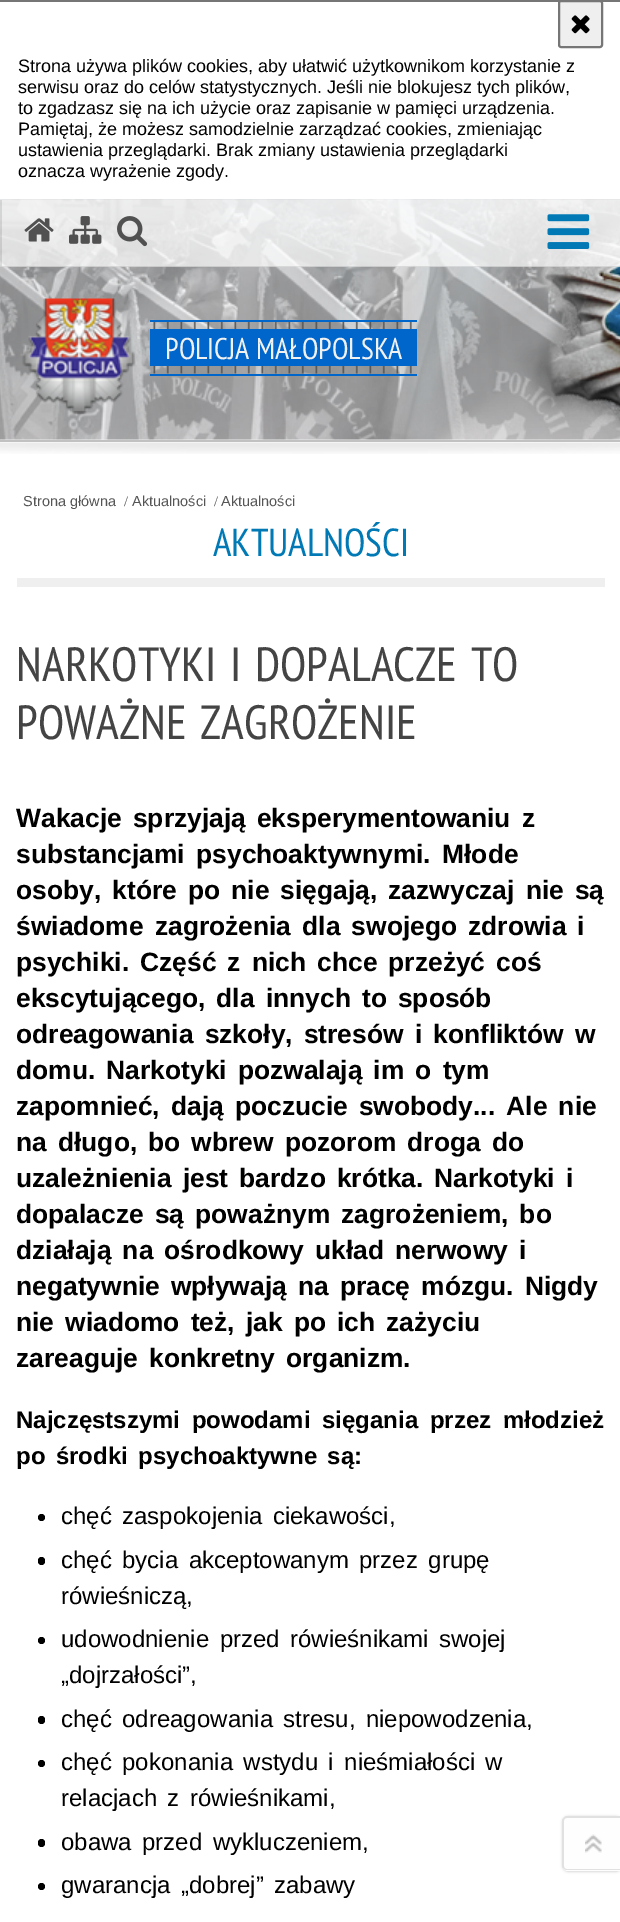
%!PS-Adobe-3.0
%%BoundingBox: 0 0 620 1922
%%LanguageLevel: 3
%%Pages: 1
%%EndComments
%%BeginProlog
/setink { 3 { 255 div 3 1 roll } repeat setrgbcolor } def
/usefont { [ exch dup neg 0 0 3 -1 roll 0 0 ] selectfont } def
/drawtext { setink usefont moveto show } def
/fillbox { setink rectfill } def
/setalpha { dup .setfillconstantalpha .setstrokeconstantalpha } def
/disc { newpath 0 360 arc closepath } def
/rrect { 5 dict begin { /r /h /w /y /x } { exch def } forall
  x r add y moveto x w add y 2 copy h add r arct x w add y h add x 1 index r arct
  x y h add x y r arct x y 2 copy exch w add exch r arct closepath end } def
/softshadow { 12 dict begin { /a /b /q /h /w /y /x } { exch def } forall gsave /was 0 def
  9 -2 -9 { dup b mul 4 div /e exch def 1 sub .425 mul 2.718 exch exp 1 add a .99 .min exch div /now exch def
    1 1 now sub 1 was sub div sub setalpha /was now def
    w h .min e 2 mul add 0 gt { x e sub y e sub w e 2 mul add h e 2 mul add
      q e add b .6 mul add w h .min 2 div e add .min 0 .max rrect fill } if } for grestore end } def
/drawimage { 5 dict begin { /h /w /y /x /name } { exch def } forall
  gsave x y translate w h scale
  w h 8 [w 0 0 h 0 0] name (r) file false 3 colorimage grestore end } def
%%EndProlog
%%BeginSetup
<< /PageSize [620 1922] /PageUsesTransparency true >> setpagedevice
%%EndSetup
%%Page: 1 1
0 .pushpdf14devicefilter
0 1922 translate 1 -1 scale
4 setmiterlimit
0 0 620 1922 255 255 255 fillbox
0 0 620 2 118 118 118 fillbox
239 239 239 setink
559 1 43 46 2 rrect gsave fill grestore
118 118 118 setink
2 setlinewidth
stroke
(assets/img1.rgb) 571 15 19 19 drawimage
(Strona używa plików cookies, aby ułatwić użytkownikom korzystanie z) 18 72 /LiberationSans-Regular 18 0 0 0 drawtext
(serwisu oraz do celów statystycznych. Jeśli nie blokujesz tych plików,) 18 93 /LiberationSans-Regular 18 0 0 0 drawtext
(to zgadzasz się na ich użycie oraz zapisanie w pamięci urządzenia.) 18 114 /LiberationSans-Regular 18 0 0 0 drawtext
(Pamiętaj, że możesz samodzielnie zarządzać cookies, zmieniając) 18 135 /LiberationSans-Regular 18 0 0 0 drawtext
(ustawienia przeglądarki. Brak zmiany ustawienia przeglądarki) 18 156 /LiberationSans-Regular 18 0 0 0 drawtext
(oznacza wyrażenie zgody.) 18 177 /LiberationSans-Regular 18 0 0 0 drawtext
(assets/img2.rgb) 0 199 620 241 drawimage
(assets/img3.rgb) 0 442 620 12 drawimage
(assets/img4.rgb) 0 199 620 241 drawimage
0 440 620 2 193 193 193 fillbox
0.7 setalpha
0 200 620 67 255 255 255 fillbox
0.1 setalpha
0 0 0 setink
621 267 moveto 0 267 lineto 2 266 lineto 620 266 lineto closepath fill
0 267 moveto 0 200 lineto 2 200 lineto 2 266 lineto closepath fill
1 setalpha
(assets/img5.rgb) 24 218 30 24 drawimage
(assets/img6.rgb) 69 216 33 28 drawimage
(assets/img7.rgb) 117 216 31 31 drawimage
(assets/img8.rgb) 547 214 43 35 drawimage
(assets/img9.rgb) 153 322 259 52 drawimage
150 320 267 2 0 102 204 fillbox
150 374 267 2 0 102 204 fillbox
(assets/img10.rgb) 22 298 114 117 drawimage
150 329 267 37 0 102 204 fillbox
(POLICJA MAŁOPOLSKA) 165 359 /PTSansNarrow-Regular 30 241 241 241 drawtext
(Strona główna) 23 506 /LiberationSans-Regular 14.5 85 85 85 drawtext
(/) 124 506 /LiberationSerif-Regular 14.5 85 85 85 drawtext
(Aktualności) 132 506 /LiberationSans-Regular 14.5 85 85 85 drawtext
(/) 214 506 /LiberationSerif-Regular 14.5 85 85 85 drawtext
(Aktualności) 221 506 /LiberationSans-Regular 14.5 85 85 85 drawtext
17 578 588 9 239 239 239 fillbox
(AKTUALNOŚCI) 213 556 /PTSansNarrow-Regular 39 0 121 181 drawtext
/PTSansNarrow-Regular 48 usefont
68 68 68 setink
16 681 moveto 3.75 0 32 (NARKOTYKI I DOPALACZE TO) widthshow
16 739 moveto 3.75 0 32 (POWAŻNE ZAGROŻENIE) widthshow
/LiberationSans-Bold 26.4 usefont
0 0 0 setink
16 827 moveto 3.75 0 32 (Wakacje sprzyjają eksperymentowaniu z) widthshow
16 863 moveto 4 0 32 (substancjami psychoaktywnymi. Młode) widthshow
16 899 moveto 3.75 0 32 (osoby, które po nie sięgają, zazwyczaj nie są) widthshow
16 935 moveto 3.75 0 32 (świadome zagrożenia dla swojego zdrowia i) widthshow
16 971 moveto 3.75 0 32 (psychiki. Część z nich chce przeżyć coś) widthshow
16 1007 moveto 3.75 0 32 (ekscytującego, dla innych to sposób) widthshow
16 1043 moveto 3.75 0 32 (odreagowania szkoły, stresów i konfliktów w) widthshow
16 1079 moveto 3.75 0 32 (domu. Narkotyki pozwalają im o tym) widthshow
16 1115 moveto 3.75 0 32 (zapomnieć, dają poczucie swobody... Ale nie) widthshow
16 1151 moveto 3.75 0 32 (na długo, bo wbrew pozorom droga do) widthshow
16 1187 moveto 3.75 0 32 (uzależnienia jest bardzo krótka. Narkotyki i) widthshow
16 1223 moveto 3.75 0 32 (dopalacze są poważnym zagrożeniem, bo) widthshow
16 1259 moveto 3.75 0 32 (działają na ośrodkowy układ nerwowy i) widthshow
16 1295 moveto 3.75 0 32 (negatywnie wpływają na pracę mózgu. Nigdy) widthshow
16 1331 moveto 3.75 0 32 (nie wiadomo też, jak po ich zażyciu) widthshow
16 1367 moveto 3.75 0 32 (zareaguje konkretny organizm.) widthshow
/LiberationSans-Bold 24 usefont
16 1428 moveto 5 0 32 (Najczęstszymi powodami sięgania przez młodzież) widthshow
16 1464 moveto 3.75 0 32 (po środki psychoaktywne są:) widthshow
41.5 1517.5 3.5 disc fill
/LiberationSans-Regular 24 usefont
61 1524 moveto 3.75 0 32 (chęć zaspokojenia ciekawości,) widthshow
38 1557 7 8 3.5 rrect fill
61 1568 moveto 3.75 0 32 (chęć bycia akceptowanym przez grupę) widthshow
(rówieśniczą,) 61 1604 /LiberationSans-Regular 24 0 0 0 drawtext
41.5 1640.5 3.5 disc fill
61 1647 moveto 3.75 0 32 (udowodnienie przed rówieśnikami swojej) widthshow
(„dojrzałości”,) 61 1683 /LiberationSans-Regular 24 0 0 0 drawtext
38 1716 7 8 3.5 rrect fill
61 1727 moveto 3.75 0 32 (chęć odreagowania stresu, niepowodzenia,) widthshow
41.5 1763.5 3.5 disc fill
61 1770 moveto 3.75 0 32 (chęć pokonania wstydu i nieśmiałości w) widthshow
61 1806 moveto 3.75 0 32 (relacjach z rówieśnikami,) widthshow
38 1839 7 8 3.5 rrect fill
61 1850 moveto 3.75 0 32 (obawa przed wykluczeniem,) widthshow
41.5 1886.5 3.5 disc fill
61 1893 moveto 3.75 0 32 (gwarancja „dobrej” zabawy) widthshow
563 1817 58 54 5 1.5 0.25 softshadow
254 254 254 setink
568 1817 moveto 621 1817 lineto 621 1871 lineto 568 1871 lineto 565 1871 563 1869 563 1866 curveto 563 1822 lineto 563 1819 565 1817 568 1817 curveto closepath fill
225 225 225 setink
567 1816 moveto 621 1816 lineto 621 1870 lineto 567 1870 lineto 565 1870 562 1868 562 1866 curveto 562 1821 lineto 562 1819 565 1816 567 1816 curveto closepath 567 1818 moveto 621 1818 lineto 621 1869 lineto 567 1869 lineto 565 1869 564 1868 564 1866 curveto 564 1821 lineto 564 1819 565 1818 567 1818 curveto closepath eofill
(assets/img11.rgb) 585 1834 17 19 drawimage
.poppdf14devicefilter showpage
%%EOF
